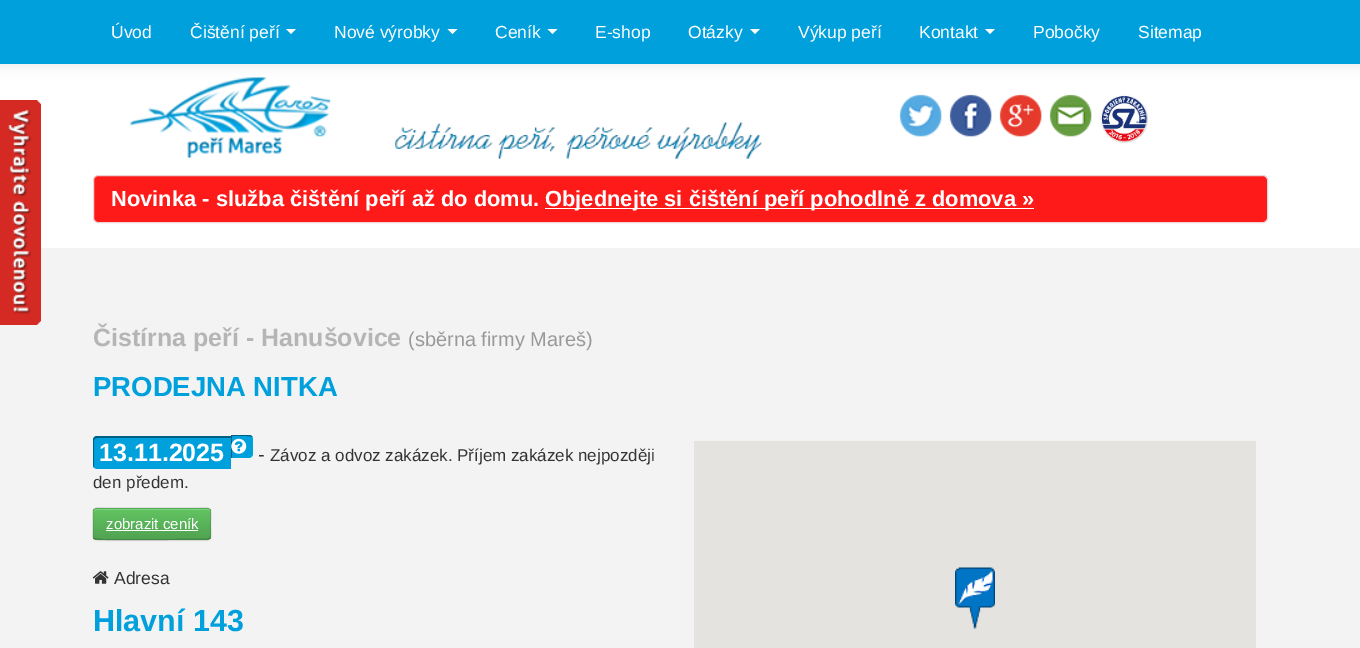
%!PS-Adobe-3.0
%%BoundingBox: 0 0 1360 648
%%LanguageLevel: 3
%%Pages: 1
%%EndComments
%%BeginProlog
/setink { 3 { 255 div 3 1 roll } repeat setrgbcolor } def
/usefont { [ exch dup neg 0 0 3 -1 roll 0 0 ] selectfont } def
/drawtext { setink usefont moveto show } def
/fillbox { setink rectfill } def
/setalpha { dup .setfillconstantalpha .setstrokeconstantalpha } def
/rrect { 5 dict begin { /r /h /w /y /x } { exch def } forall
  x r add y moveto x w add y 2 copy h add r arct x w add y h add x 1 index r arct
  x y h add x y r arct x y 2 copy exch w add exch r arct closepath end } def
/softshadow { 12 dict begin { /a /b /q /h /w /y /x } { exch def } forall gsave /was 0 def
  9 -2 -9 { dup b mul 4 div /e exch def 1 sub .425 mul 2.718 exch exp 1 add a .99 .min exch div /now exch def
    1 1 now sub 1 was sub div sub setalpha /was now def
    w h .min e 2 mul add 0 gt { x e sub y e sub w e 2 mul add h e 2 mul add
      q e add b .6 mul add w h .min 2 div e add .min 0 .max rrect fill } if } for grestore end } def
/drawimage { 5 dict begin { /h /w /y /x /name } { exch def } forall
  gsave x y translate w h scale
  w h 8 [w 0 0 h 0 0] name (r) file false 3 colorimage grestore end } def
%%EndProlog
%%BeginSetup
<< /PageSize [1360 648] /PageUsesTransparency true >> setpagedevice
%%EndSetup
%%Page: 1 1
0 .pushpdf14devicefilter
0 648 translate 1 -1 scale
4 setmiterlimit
0 0 1360 648 255 255 255 fillbox
0 248 1360 400 243 243 243 fillbox
(assets/img1.rgb) 0 100 41 225 drawimage
(assets/img2.rgb) 129 77 202 82 drawimage
0 0 0 setink
0 1 1360 64 0 6 0.1 softshadow
0 0 1360 64 0 160 220 fillbox
(Úvod) 111 38 /LiberationSans-Regular 17.5 255 255 255 drawtext
(Čištění peří) 190 38 /LiberationSans-Regular 17.5 255 255 255 drawtext
286 29 moveto 296 29 lineto 291 34 lineto closepath fill
(Nové výrobky) 334 38 /LiberationSans-Regular 17.5 255 255 255 drawtext
447.5 29 moveto 457.5 29 lineto 452.5 34 lineto closepath fill
(Ceník) 495 38 /LiberationSans-Regular 17.5 255 255 255 drawtext
547.5 29 moveto 557.5 29 lineto 552.5 34 lineto closepath fill
(E-shop) 595 38 /LiberationSans-Regular 17.5 255 255 255 drawtext
(Otázky) 688 38 /LiberationSans-Regular 17.5 255 255 255 drawtext
750 29 moveto 760 29 lineto 755 34 lineto closepath fill
(Výkup peří) 798 38 /LiberationSans-Regular 17.5 255 255 255 drawtext
(Kontakt) 919 38 /LiberationSans-Regular 17.5 255 255 255 drawtext
985 29 moveto 995 29 lineto 990 34 lineto closepath fill
(Pobočky) 1033 38 /LiberationSans-Regular 17.5 255 255 255 drawtext
(Sitemap) 1138 38 /LiberationSans-Regular 17.5 255 255 255 drawtext
(assets/img3.rgb) 394 122 369 37 drawimage
(assets/img4.rgb) 899 94 43 43 drawimage
(assets/img5.rgb) 949 94 43 43 drawimage
(assets/img6.rgb) 999 94 43 43 drawimage
(assets/img7.rgb) 1049 94 43 43 drawimage
(assets/img8.rgb) 1100 94 48 49 drawimage
255 26 26 setink
93.5 175.5 1174 47 4.5 rrect gsave fill grestore
238 211 215 setink
stroke
(Novinka - služba čištění peří až do domu.) 111 206 /LiberationSans-Bold 21.9 255 255 255 drawtext
545 208 489 1 255 255 255 fillbox
(Objednejte si čištění peří pohodlně z domova ») 545 206 /LiberationSans-Bold 21.9 255 255 255 drawtext
(Čistírna peří - Hanušovice) 93 346 /LiberationSans-Bold 25 181 181 181 drawtext
(\(sběrna firmy Mareš\)) 408 346 /LiberationSans-Regular 20 153 153 153 drawtext
(PRODEJNA NITKA) 93 396 /LiberationSans-Bold 27.5 0 160 220 drawtext
97 436 moveto 231 436 lineto 231 469 lineto 97 469 lineto 95 469 93 467 93 465 curveto 93 440 lineto 93 438 95 436 97 436 curveto closepath fill
0 96 132 setink
98 438 moveto 231 438 lineto 231 436 lineto 97 436 lineto 95 436 93 438 93 440 curveto 93 465 lineto 93 466 94 467 94 468 curveto 94 466 lineto 94 441 lineto 94 439 95 438 98 438 curveto closepath fill
0 160 220 setink
231 435 moveto 249 435 lineto 251 435 253 437 253 439 curveto 253 454 lineto 253 456 251 458 249 458 curveto 231 458 lineto closepath fill
0 96 132 setink
232 436 moveto 247 436 lineto 249.5 436 251.5 436.5 252.5 437 curveto 252 436 250.5 435 249 435 curveto 231 435 lineto 231 458 lineto 232 458 lineto closepath fill
(13.11.2025) 99 461 /LiberationSans-Bold 25 255 255 255 drawtext
(assets/img9.rgb) 231 438 16 16 drawimage
(-) 258 461 /LiberationSans-Regular 20 51 51 51 drawtext
(Závoz a odvoz zakázek. Příjem zakázek nejpozději) 270 461 /LiberationSans-Regular 17 51 51 51 drawtext
(den předem.) 93 488 /LiberationSans-Regular 17 51 51 51 drawtext
0 0 0 setink
93 509 118 32 4 1 0.05 softshadow
91 183 91 setink
93 508 118 32 4 rrect fill
gsave
93 508 118 32 4 rrect clip newpath
gsave 93 509 moveto 211 509 lineto 211 539 lineto 93 539 lineto closepath clip newpath
<< /ShadingType 2 /ColorSpace /DeviceRGB /Coords [152 509 152 539] /Extend [true true] /Function << /FunctionType 2 /Domain [0 1] /C0 [0.384 0.769 0.384] /C1 [0.318 0.639 0.318] /N 1 >> >> shfill grestore
grestore
129 207 129 setink
96 510 moveto 208 510 lineto 209 510 210 511 210 512 curveto 210 510 209 509 208 509 curveto 96 509 lineto 95 509 94 510 94 512 curveto 94 511 95 510 96 510 curveto closepath fill
0.25 setalpha
0 0 0 setink
1.2 setlinewidth
209.5 538.5 moveto 207.5 539.5 lineto 189 539.5 lineto 179 539.5 97 540.5 94.5 539 curveto 94 538.5 lineto stroke
0.1 setalpha
94 538.5 moveto 92 536.5 93 530.5 93 528 curveto 93 503.5 89 508 115 508 curveto 189 508 lineto 215 508 210.5 503.5 210.5 528 curveto 210.5 530.5 212 536.5 209.5 538.5 curveto stroke
1 setalpha
(zobrazit ceník) 106 529 /LiberationSans-Regular 15 255 255 255 drawtext
106 530 92 1 255 255 255 fillbox
(assets/img10.rgb) 92 571 17 13 drawimage
(Adresa) 114 584 /LiberationSans-Regular 17.5 51 51 51 drawtext
(Hlavní 143) 93 631 /LiberationSans-Bold 30.5 0 160 220 drawtext
694 441 562 207 229 227 223 fillbox
(assets/img11.rgb) 955 567 40 62 drawimage
.poppdf14devicefilter showpage
%%EOF
